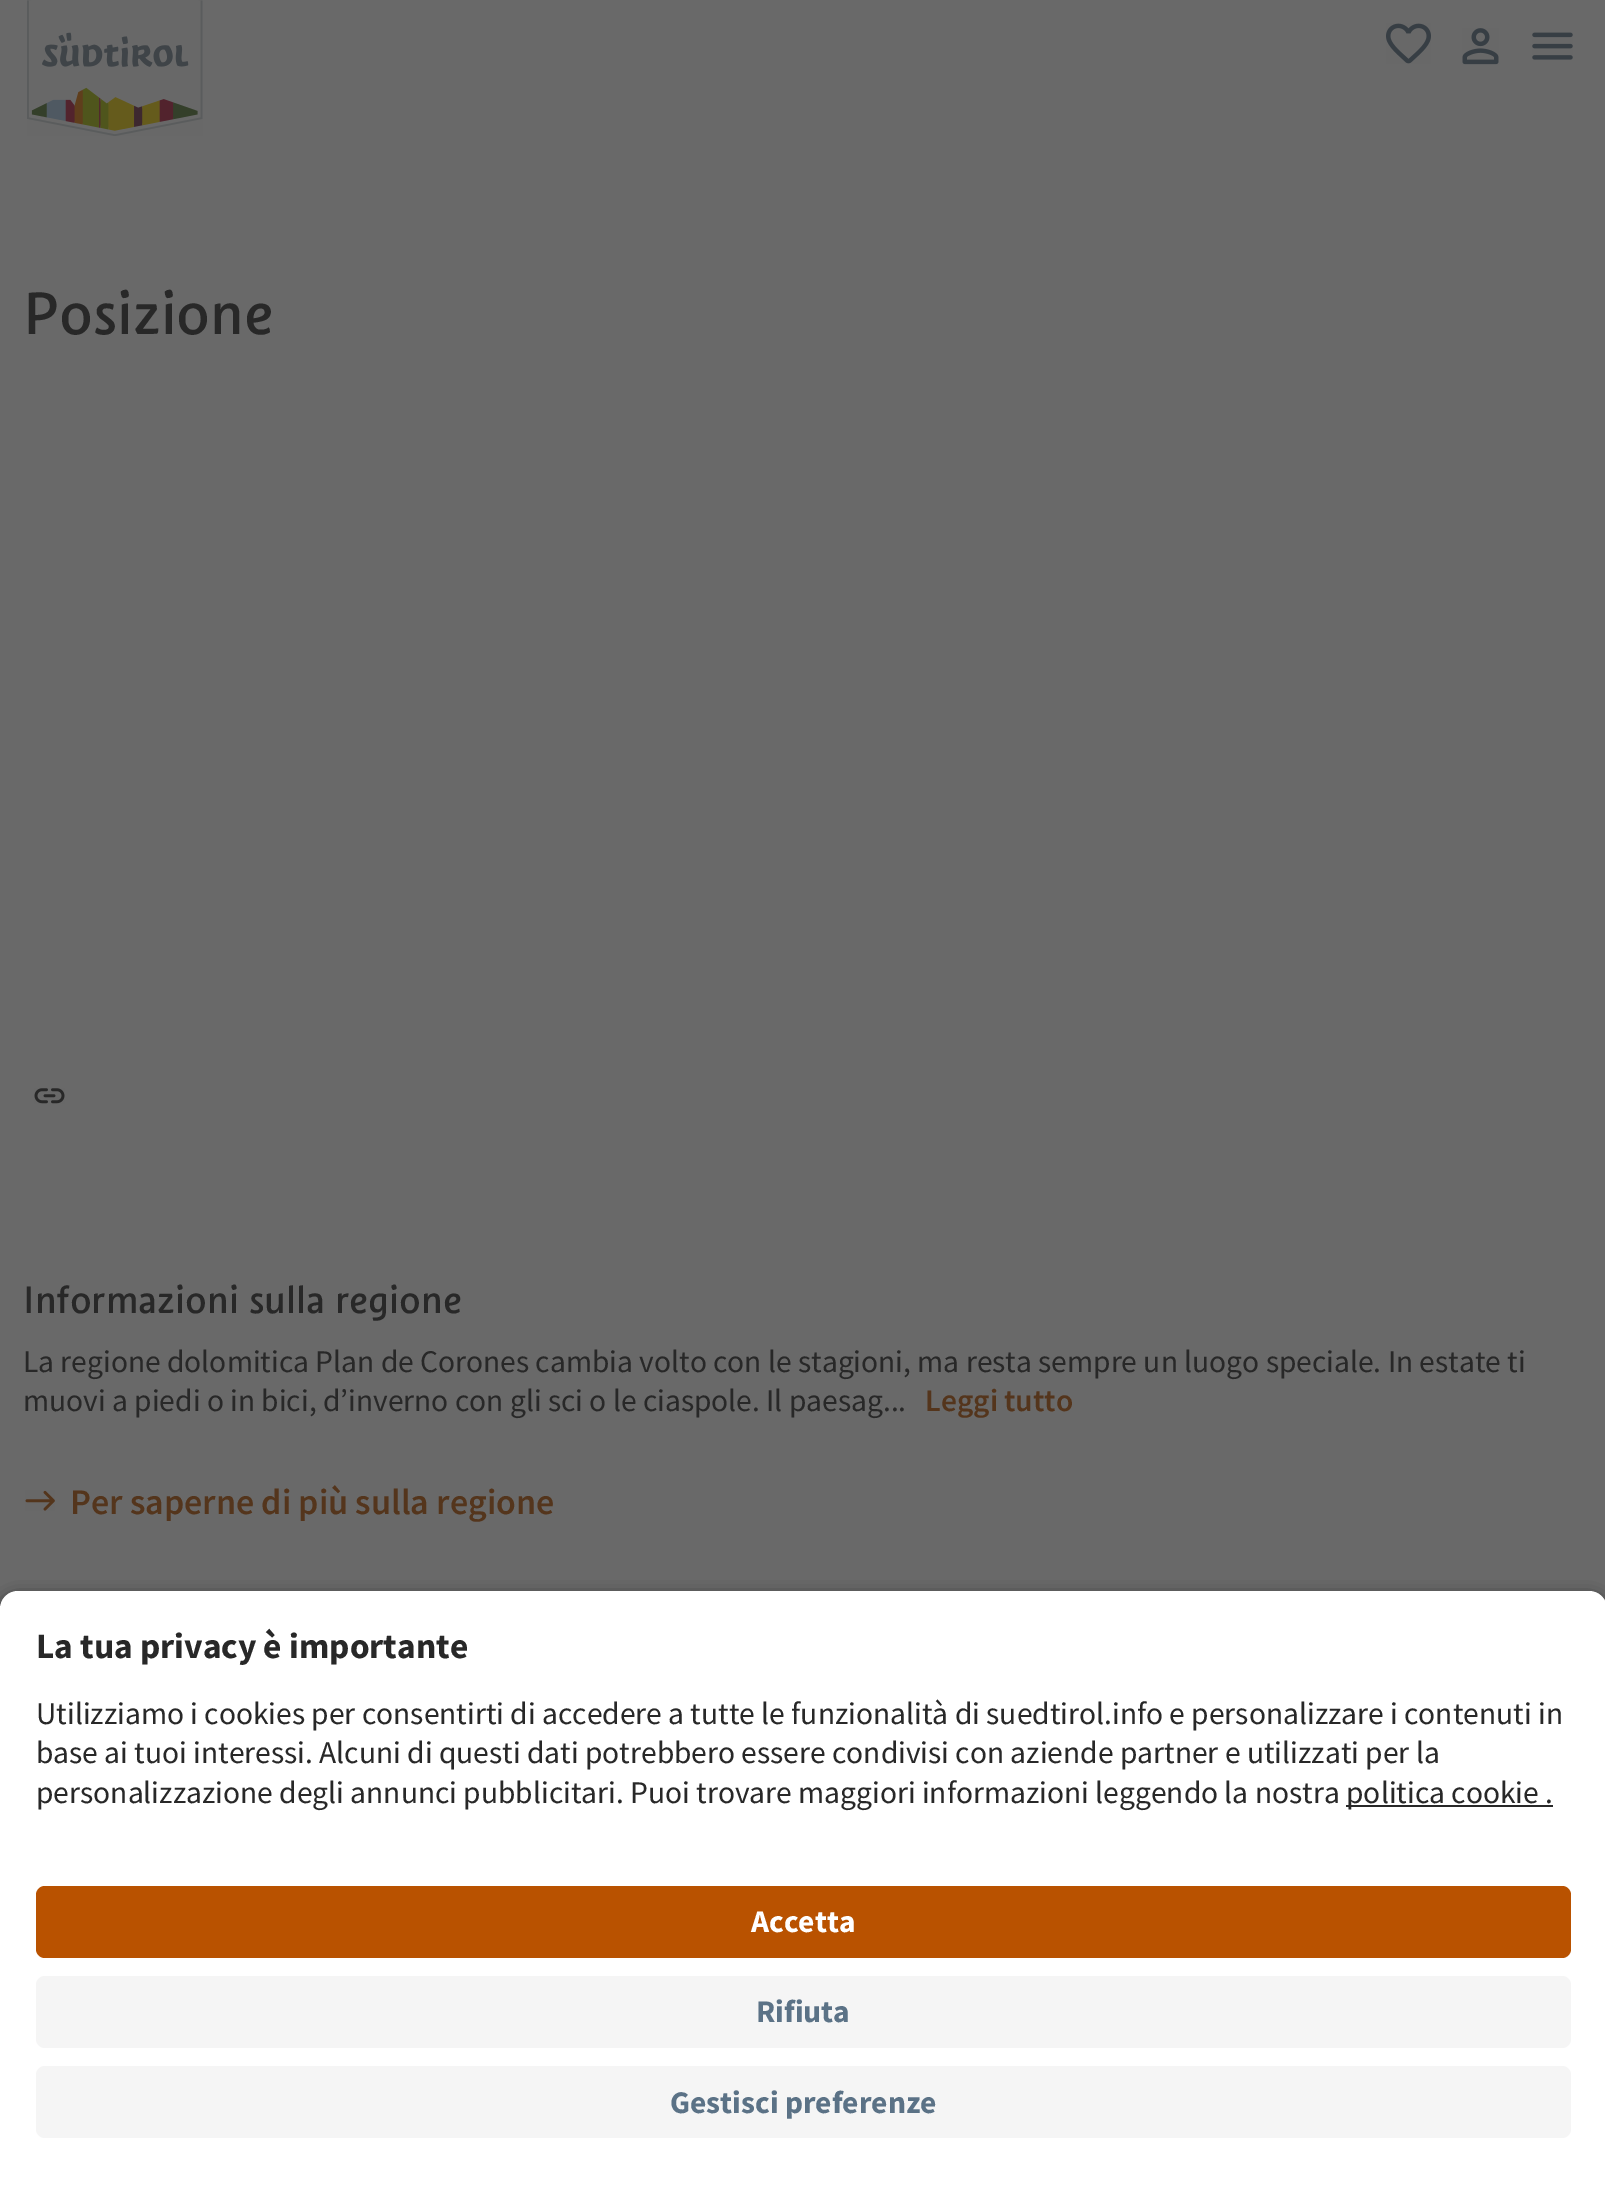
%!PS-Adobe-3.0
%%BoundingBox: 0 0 1605 2199
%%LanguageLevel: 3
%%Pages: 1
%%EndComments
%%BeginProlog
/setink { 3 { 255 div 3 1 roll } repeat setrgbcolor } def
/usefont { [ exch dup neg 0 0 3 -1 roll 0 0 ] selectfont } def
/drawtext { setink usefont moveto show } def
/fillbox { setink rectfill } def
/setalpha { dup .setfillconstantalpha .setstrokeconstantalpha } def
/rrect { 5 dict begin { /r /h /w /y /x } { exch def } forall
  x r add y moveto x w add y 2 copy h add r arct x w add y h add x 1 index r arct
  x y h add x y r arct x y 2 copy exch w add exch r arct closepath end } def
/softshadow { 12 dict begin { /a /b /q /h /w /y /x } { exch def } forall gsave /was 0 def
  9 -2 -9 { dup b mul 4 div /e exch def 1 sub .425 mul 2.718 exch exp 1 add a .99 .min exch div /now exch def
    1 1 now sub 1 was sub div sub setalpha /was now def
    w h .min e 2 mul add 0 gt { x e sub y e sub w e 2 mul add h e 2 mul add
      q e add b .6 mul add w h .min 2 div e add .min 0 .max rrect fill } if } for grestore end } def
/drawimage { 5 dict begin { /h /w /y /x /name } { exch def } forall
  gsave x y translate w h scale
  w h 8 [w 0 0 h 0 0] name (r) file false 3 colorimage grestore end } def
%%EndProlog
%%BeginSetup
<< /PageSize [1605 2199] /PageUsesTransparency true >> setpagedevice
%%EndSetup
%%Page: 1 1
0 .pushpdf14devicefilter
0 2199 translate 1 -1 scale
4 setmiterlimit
0 0 1605 2199 105 105 105 fillbox
(assets/img1.rgb) 27 0 176 136 drawimage
(assets/img2.rgb) 1386 23 45 41 drawimage
(assets/img3.rgb) 1462 28 37 37 drawimage
(assets/img4.rgb) 1532 32 41 28 drawimage
(Posizione) 23 334 /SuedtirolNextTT-Regular 63 40 40 40 drawtext
(assets/img5.rgb) 34 1088 31 16 drawimage
(Informazioni sulla regione) 23 1313 /SuedtirolNextTT-Regular 40.5 40 40 40 drawtext
(La regione dolomitica Plan de Corones cambia volto con le stagioni, ma resta sempre un luogo speciale. In estate ti) 23 1372 /SourceSansPro-Regular 31.5 40 40 40 drawtext
(muovi a piedi o in bici, d’inverno con gli sci o le ciaspole. Il paesag...) 23 1411 /SourceSansPro-Regular 31.5 40 40 40 drawtext
(Leggi tutto) 925 1411 /SourceSansPro-SemiBold 31.5 84 53 28 drawtext
(assets/img6.rgb) 25 1490 30 21 drawimage
(Per saperne di più sulla regione) 70 1514 /SourceSansPro-SemiBold 36 84 53 28 drawtext
0 0 0 setink
0 1598 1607 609 18 8 0.8 softshadow
255 255 255 setink
18 1591 moveto 1589 1591 lineto 1599 1591 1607 1599 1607 1609 curveto 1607 1859 lineto 0 1859 lineto 0 1609 lineto 0 1599 8 1591 18 1591 curveto closepath fill
(La tua privacy è importante) 36 1658 /SourceSansPro-Bold 35.5 40 40 40 drawtext
(Utilizziamo i cookies per consentirti di accedere a tutte le funzionalità di suedtirol.info e personalizzare i contenuti in) 36 1724 /SourceSansPro-Regular 31.5 40 40 40 drawtext
(base ai tuoi interessi. Alcuni di questi dati potrebbero essere condivisi con aziende partner e utilizzati per la) 36 1763 /SourceSansPro-Regular 31.5 40 40 40 drawtext
(personalizzazione degli annunci pubblicitari. Puoi trovare maggiori informazioni leggendo la nostra) 36 1803 /SourceSansPro-Regular 31.5 40 40 40 drawtext
1346 1805 207 2 40 40 40 fillbox
(politica cookie .) 1346 1803 /SourceSansPro-Regular 31.5 40 40 40 drawtext
0 1859 1605 340 255 255 255 fillbox
185 82 0 setink
36 1886 1535 72 9 rrect fill
(Accetta) 751 1932 /SourceSansPro-Bold 31.5 255 255 255 drawtext
245 245 245 setink
36 1976 1535 72 9 rrect fill
(Rifiuta) 756 2022 /SourceSansPro-Bold 31.5 91 114 134 drawtext
245 245 245 setink
36 2066 1535 72 9 rrect fill
(Gestisci preferenze) 670 2113 /SourceSansPro-Bold 31.5 91 114 134 drawtext
.poppdf14devicefilter showpage
%%EOF
